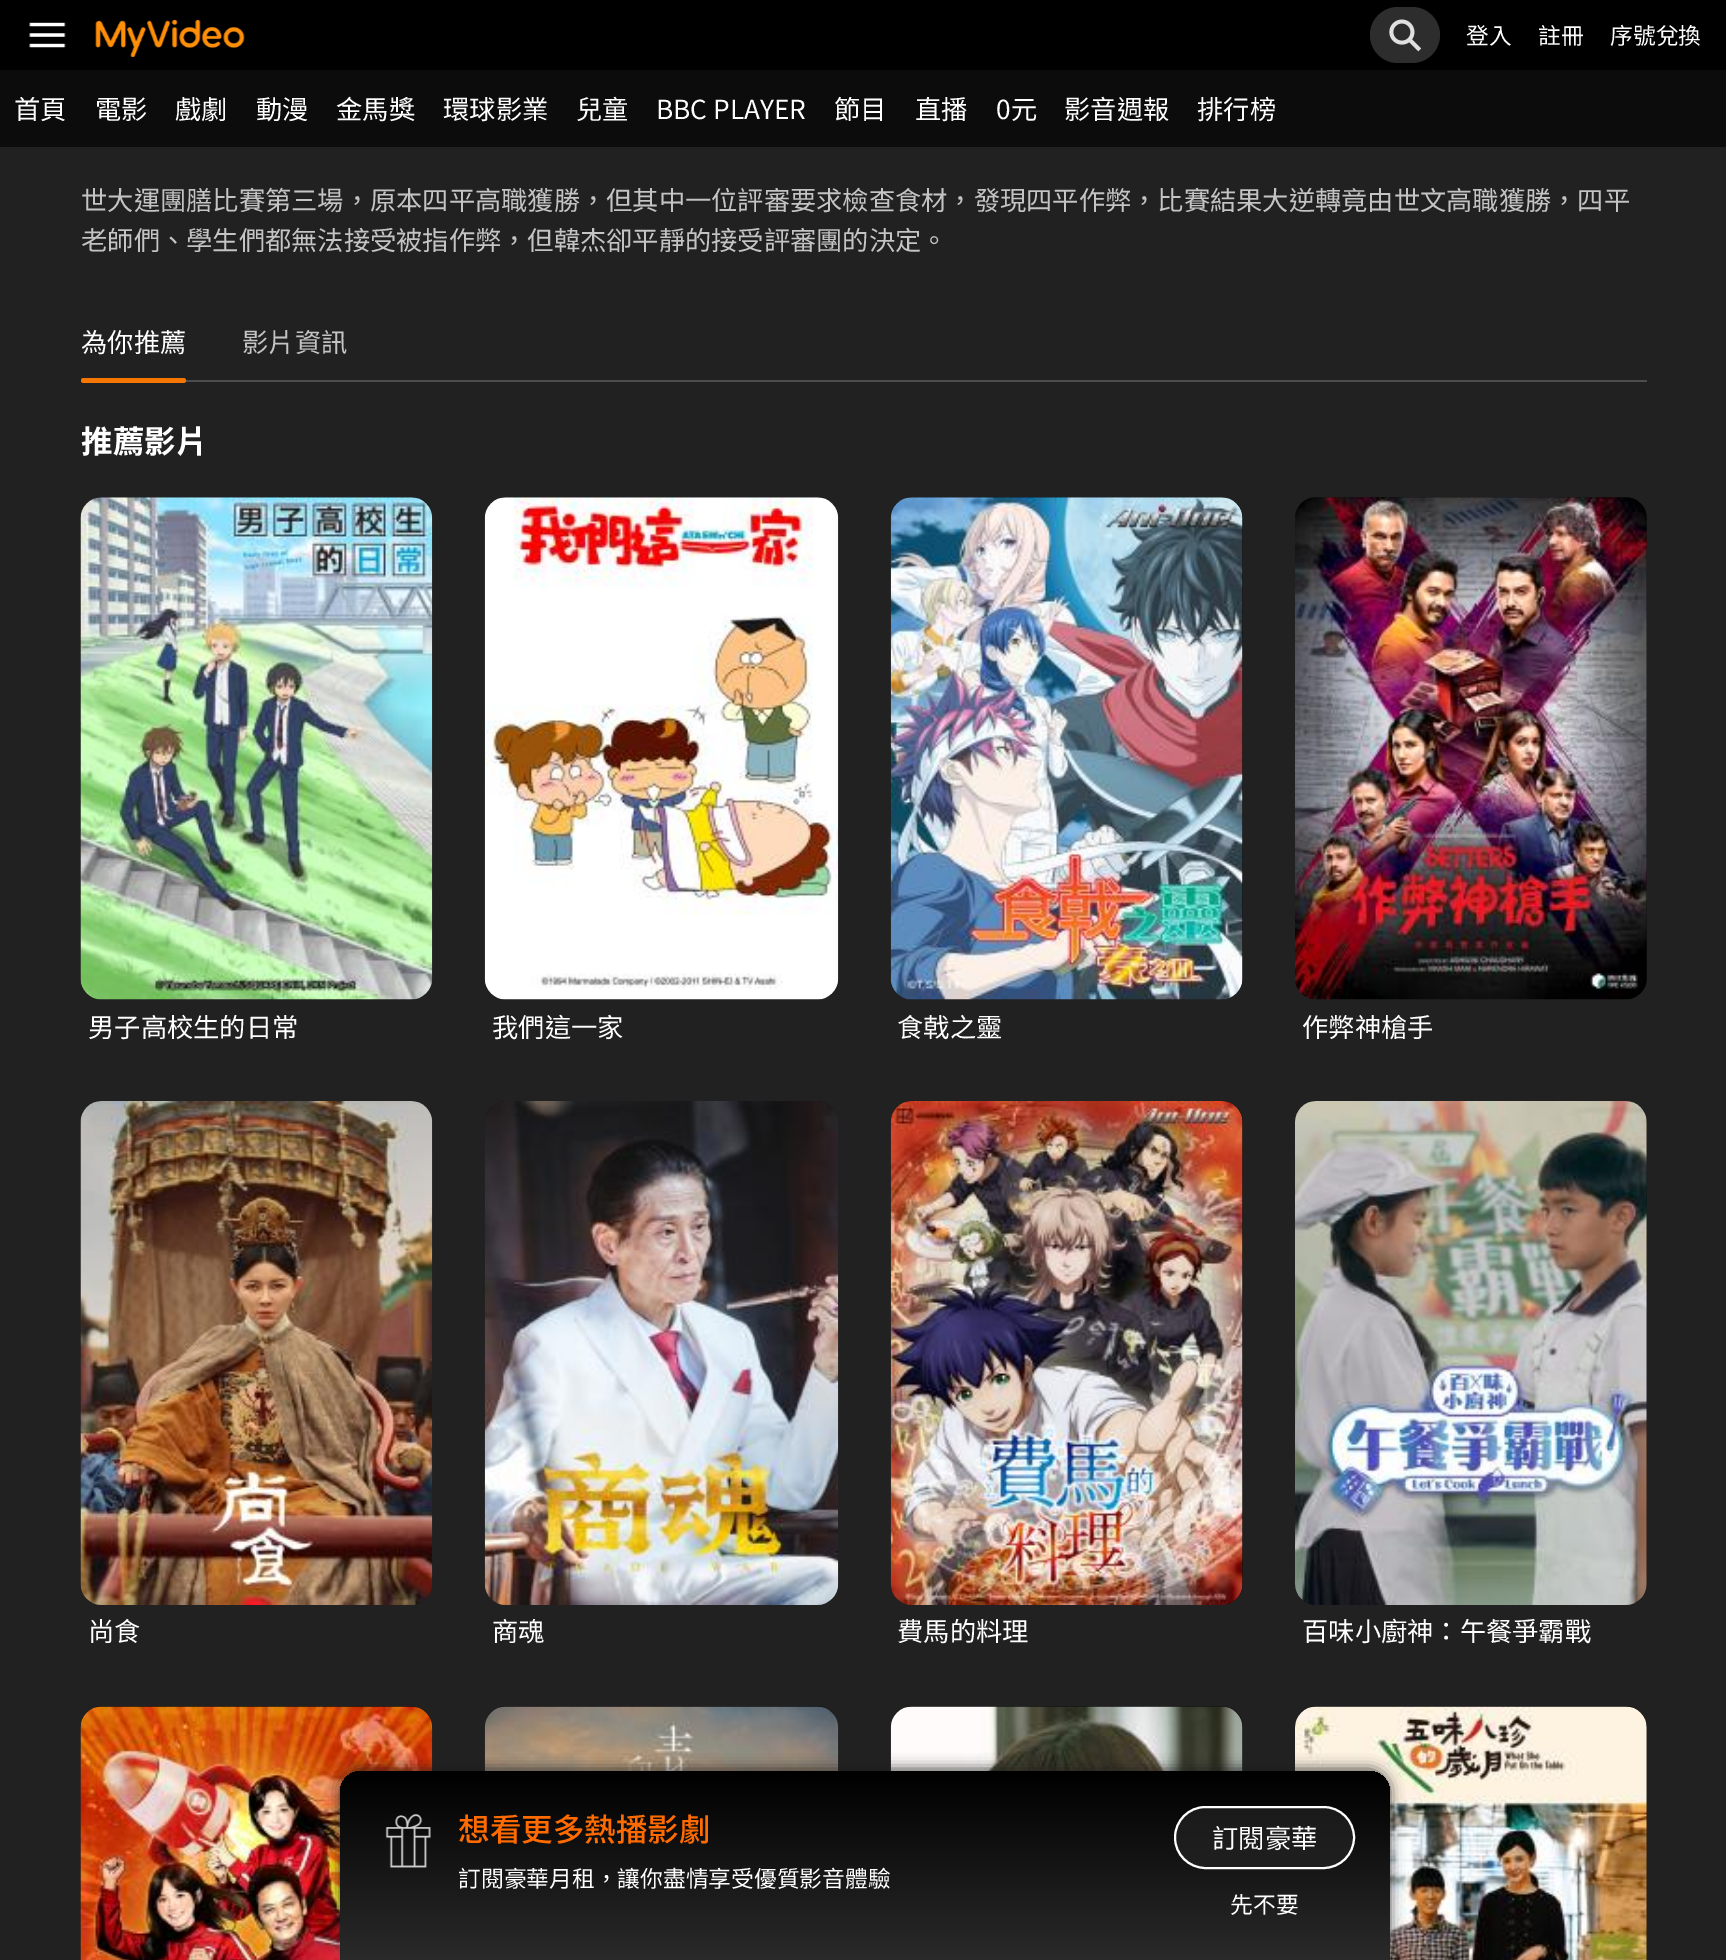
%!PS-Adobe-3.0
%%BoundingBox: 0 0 1726 1960
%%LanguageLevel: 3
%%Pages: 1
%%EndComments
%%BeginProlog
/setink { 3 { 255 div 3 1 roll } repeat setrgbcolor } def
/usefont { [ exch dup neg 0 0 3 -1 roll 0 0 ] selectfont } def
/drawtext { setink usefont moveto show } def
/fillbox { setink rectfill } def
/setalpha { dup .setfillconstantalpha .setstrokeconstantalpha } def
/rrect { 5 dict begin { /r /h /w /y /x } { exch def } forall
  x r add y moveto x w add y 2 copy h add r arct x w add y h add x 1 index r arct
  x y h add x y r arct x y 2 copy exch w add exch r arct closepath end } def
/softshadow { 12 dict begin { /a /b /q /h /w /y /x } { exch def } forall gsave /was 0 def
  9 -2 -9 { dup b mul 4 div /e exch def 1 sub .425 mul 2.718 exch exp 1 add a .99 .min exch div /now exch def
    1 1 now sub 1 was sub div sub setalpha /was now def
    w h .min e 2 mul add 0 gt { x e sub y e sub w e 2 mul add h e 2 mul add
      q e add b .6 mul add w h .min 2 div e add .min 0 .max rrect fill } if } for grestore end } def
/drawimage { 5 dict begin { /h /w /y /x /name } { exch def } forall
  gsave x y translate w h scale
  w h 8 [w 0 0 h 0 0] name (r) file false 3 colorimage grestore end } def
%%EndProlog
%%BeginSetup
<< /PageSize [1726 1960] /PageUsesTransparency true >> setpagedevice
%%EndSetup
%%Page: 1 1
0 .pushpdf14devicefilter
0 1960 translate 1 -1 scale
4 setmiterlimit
0 0 1726 1960 33 33 33 fillbox
0 0 1726 70 0 0 0 fillbox
(assets/img1.rgb) 29 22 37 26 drawimage
(assets/img2.rgb) 95 19 150 38 drawimage
45 45 45 setink
1370 7 70 56 28 rrect fill
(assets/img3.rgb) 1389 19 33 33 drawimage
(登入) 1466 44 /NotoSansTC-Regular 22.75 255 255 255 drawtext
(註冊) 1538 44 /NotoSansTC-Regular 22.75 255 255 255 drawtext
(序號兌換) 1610 44 /NotoSansTC-Regular 22.75 255 255 255 drawtext
0 70 1726 77 12 12 12 fillbox
(首頁) 14 119 /NotoSansTC-Regular 26.25 255 255 255 drawtext
(電影) 95 119 /NotoSansTC-Regular 26.25 255 255 255 drawtext
(戲劇) 175 119 /NotoSansTC-Regular 26.25 255 255 255 drawtext
(動漫) 256 119 /NotoSansTC-Regular 26.25 255 255 255 drawtext
(金馬獎) 336 119 /NotoSansTC-Regular 26.25 255 255 255 drawtext
(環球影業) 443 119 /NotoSansTC-Regular 26.25 255 255 255 drawtext
(兒童) 576 119 /NotoSansTC-Regular 26.25 255 255 255 drawtext
(BBC PLAYER) 656 119 /NotoSansTC-Regular 26.25 255 255 255 drawtext
(節目) 834 119 /NotoSansTC-Regular 26.25 255 255 255 drawtext
(直播) 915 119 /NotoSansTC-Regular 26.25 255 255 255 drawtext
(0元) 996 119 /NotoSansTC-Regular 26.25 255 255 255 drawtext
(影音週報) 1064 119 /NotoSansTC-Regular 26.25 255 255 255 drawtext
(排行榜) 1197 119 /NotoSansTC-Regular 26.25 255 255 255 drawtext
(世大運團膳比賽第三場，原本四平高職獲勝，但其中一位評審要求檢查食材，發現四平作弊，比賽結果大逆轉竟由世文高職獲勝，四平) 81 210 /NotoSansTC-Regular 26.25 196 196 196 drawtext
(老師們、學生們都無法接受被指作弊，但韓杰卻平靜的接受評審團的決定。) 81 250 /NotoSansTC-Regular 26.25 196 196 196 drawtext
81 380 1566 2 77 77 77 fillbox
(為你推薦) 81 352 /NotoSansTC-Regular 26.25 255 255 255 drawtext
(影片資訊) 242 352 /NotoSansTC-Regular 26.25 196 196 196 drawtext
245 118 0 setink
81 378 105 5 2.5 rrect fill
(推薦影片) 81 453 /NotoSansTC-Bold 31.5 255 255 255 drawtext
18 18 18 setink
81 497 351 502 21 rrect fill
(assets/img4.rgb) 80 497 353 503 drawimage
(男子高校生的日常) 88 1037 /NotoSansTC-Regular 26.25 255 255 255 drawtext
18 18 18 setink
485 497 353 502 21 rrect fill
(assets/img5.rgb) 484 497 355 503 drawimage
(我們這一家) 492 1037 /NotoSansTC-Regular 26.25 255 255 255 drawtext
18 18 18 setink
891 497 352 502 21 rrect fill
(assets/img6.rgb) 890 497 353 503 drawimage
(食戟之靈) 897 1037 /NotoSansTC-Regular 26.25 255 255 255 drawtext
18 18 18 setink
1295 497 352 502 21 rrect fill
(assets/img7.rgb) 1295 497 352 503 drawimage
(作弊神槍手) 1302 1037 /NotoSansTC-Regular 26.25 255 255 255 drawtext
(assets/img8.rgb) 80 1101 353 504 drawimage
(尚食) 88 1641 /NotoSansTC-Regular 26.25 255 255 255 drawtext
(assets/img9.rgb) 484 1101 355 504 drawimage
(商魂) 492 1641 /NotoSansTC-Regular 26.25 255 255 255 drawtext
18 18 18 setink
891 1101 352 504 21 rrect fill
(assets/img10.rgb) 890 1101 353 504 drawimage
(費馬的料理) 897 1641 /NotoSansTC-Regular 26.25 255 255 255 drawtext
18 18 18 setink
1295 1101 352 504 21 rrect fill
(assets/img11.rgb) 1295 1101 352 504 drawimage
(百味小廚神：午餐爭霸戰) 1302 1641 /NotoSansTC-Regular 26.25 255 255 255 drawtext
18 18 18 setink
81 1706 351 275 21 rrect fill
(assets/img12.rgb) 80 1706 353 254 drawimage
485 1706 353 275 21 rrect fill
(assets/img13.rgb) 484 1706 355 65 drawimage
891 1706 352 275 21 rrect fill
(assets/img14.rgb) 890 1706 353 65 drawimage
1295 1706 352 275 21 rrect fill
(assets/img15.rgb) 1295 1706 352 254 drawimage
27 27 27 setink
340 1769 1050 189 21 7 0.8 softshadow
gsave 361 1771 moveto 1369 1771 lineto 1380.5 1771 1390 1780.5 1390 1792 curveto 1390 1960 lineto 340 1960 lineto 340 1792 lineto 340 1780.5 349.5 1771 361 1771 curveto closepath clip newpath
<< /ShadingType 2 /ColorSpace /DeviceRGB /Coords [865 1771 865 1960] /Extend [true true] /Function << /FunctionType 2 /Domain [0 1] /C0 [0 0 0] /C1 [0.165 0.165 0.165] /N 1 >> >> shfill grestore
(assets/img16.rgb) 385 1813 46 55 drawimage
(想看更多熱播影劇) 458 1841 /NotoSansTC-Medium 31.5 255 107 0 drawtext
(訂閱豪華月租，讓你盡情享受優質影音體驗) 458 1887 /NotoSansTC-Regular 22.75 255 255 255 drawtext
0.6 setalpha
38 38 38 setink
1175 1807 179 61 30.5 rrect fill
1 setalpha
255 255 255 setink
2 setlinewidth
1175 1807 179 61 30.5 rrect stroke
(訂閱豪華) 1212 1848 /NotoSansTC-Regular 26.25 255 255 255 drawtext
(先不要) 1230 1913 /NotoSansTC-Regular 22.75 255 255 255 drawtext
.poppdf14devicefilter showpage
%%EOF
